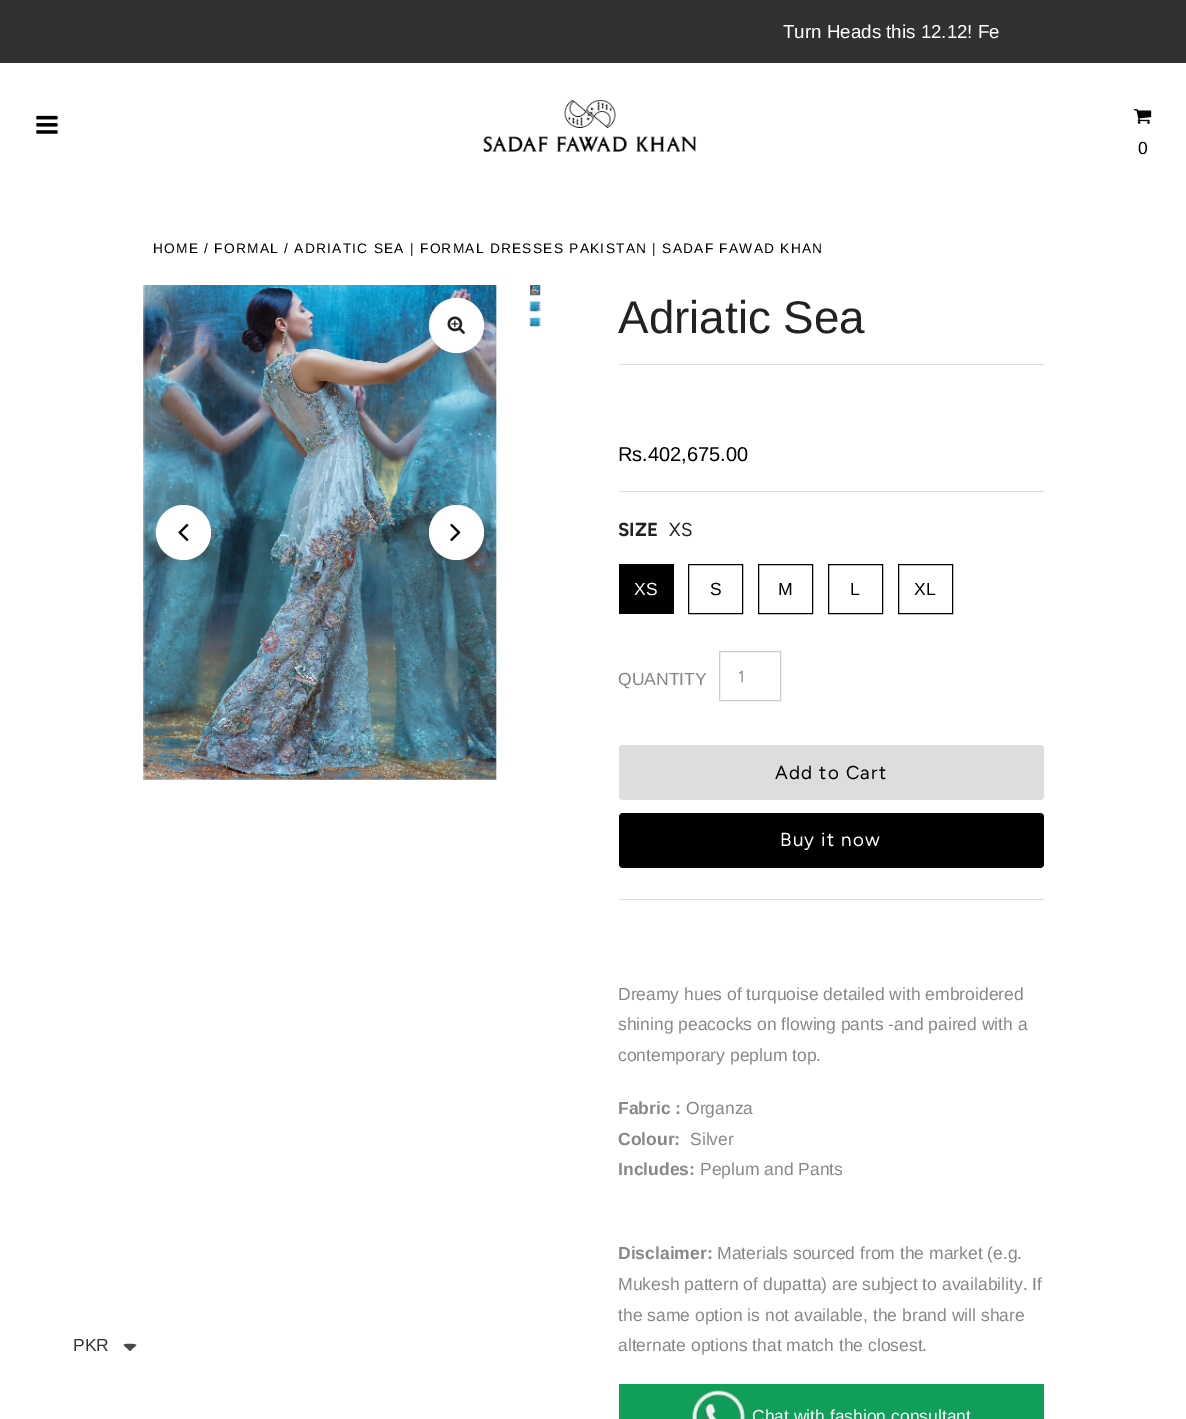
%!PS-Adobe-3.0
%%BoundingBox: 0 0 1186 1419
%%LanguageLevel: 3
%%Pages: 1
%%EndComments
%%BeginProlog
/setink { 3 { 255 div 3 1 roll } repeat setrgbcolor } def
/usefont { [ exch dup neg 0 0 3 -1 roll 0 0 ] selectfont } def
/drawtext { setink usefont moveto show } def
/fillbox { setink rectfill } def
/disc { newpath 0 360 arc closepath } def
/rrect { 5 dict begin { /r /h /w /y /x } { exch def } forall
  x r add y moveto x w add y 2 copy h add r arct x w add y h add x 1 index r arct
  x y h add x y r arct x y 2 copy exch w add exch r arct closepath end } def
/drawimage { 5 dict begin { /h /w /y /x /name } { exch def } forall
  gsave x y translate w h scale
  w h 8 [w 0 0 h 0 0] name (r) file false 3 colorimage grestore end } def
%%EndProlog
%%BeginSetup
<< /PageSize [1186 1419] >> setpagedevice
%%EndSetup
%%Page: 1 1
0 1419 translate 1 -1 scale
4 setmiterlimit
0 0 1186 1419 255 255 255 fillbox
(PKR) 73 1351 /LiberationSans-Regular 17.5 51 51 51 drawtext
71 73 66 setink
126 1344 moveto 128.5 1344 134.5 1343.5 136.5 1345 curveto 130 1351 lineto 123.5 1345 lineto 124 1344.5 125 1344 126 1344 curveto closepath fill
0 0 1186 63 49 49 49 fillbox
(Turn Heads this 12.12! Fe) 783 38 /LiberationSans-Regular 18.75 255 255 255 drawtext
(assets/img1.rgb) 36 115 22 19 drawimage
(assets/img2.rgb) 483 100 214 53 drawimage
(assets/img3.rgb) 1133 109 19 15 drawimage
/LiberationSans-Regular 17.5 usefont
0 0 0 setink
1138 154 moveto 1.25 0 (0) ashow
/LiberationSans-Regular 13.75 usefont
153 253 moveto 1.25 0 (HOME / FORMAL / ADRIATIC SEA | FORMAL DRESSES PAKISTAN | SADAF FAWAD KHAN) ashow
(assets/img4.rgb) 143 285 354 495 drawimage
255 255 255 setink
456.5 325.5 27.5 disc fill
(assets/img5.rgb) 447 316 18 18 drawimage
183.5 532.5 27.5 disc fill
(assets/img6.rgb) 178 523 11 19 drawimage
456.5 532.5 27.5 disc fill
(assets/img7.rgb) 450 523 11 19 drawimage
(assets/img8.rgb) 531 286 8 8 drawimage
102 102 102 setink
530.5 285.5 9 9 rectstroke
(assets/img9.rgb) 529 301 12 11 drawimage
(assets/img10.rgb) 529 317 12 10 drawimage
(Adriatic Sea) 618 333 /LiberationSans-Regular 45.75 34 34 34 drawtext
619 364 425 1 221 221 221 fillbox
619 899 425 1 221 221 221 fillbox
619 491 425 1 221 221 221 fillbox
(Rs.402,675.00) 618 461 /LiberationSans-Regular 20 0 0 0 drawtext
(SIZE) 618 536 /Figtree-Bold 18.75 34 34 34 drawtext
(XS) 669 536 /Figtree-Regular 18.75 34 34 34 drawtext
619 564 55 50 0 0 0 fillbox
(XS) 634 595 /LiberationSans-Regular 17.5 255 255 255 drawtext
0 0 0 setink
688.5 564.5 54 49 rectstroke
(S) 710 595 /LiberationSans-Regular 17.5 0 0 0 drawtext
758.5 564.5 54 49 rectstroke
(M) 778 595 /LiberationSans-Regular 17.5 0 0 0 drawtext
828.5 564.5 54 49 rectstroke
(L) 850 595 /LiberationSans-Regular 17.5 0 0 0 drawtext
898.5 564.5 54 49 rectstroke
(XL) 914 595 /LiberationSans-Regular 17.5 0 0 0 drawtext
(QUANTITY) 618 685 /LiberationSans-Regular 17.5 135 135 135 drawtext
204 204 204 setink
719.5 651.5 61 49 rectstroke
(1) 738 682 /Figtree-Regular 16 135 135 135 drawtext
221 221 221 setink
619 745 425 55 4 rrect fill
/Figtree-Regular 18.75 usefont
0 0 0 setink
775 779 moveto 1.25 0 (Add to Cart) ashow
619 813 425 55 4 rrect fill
255 255 255 setink
780 846 moveto 1.25 0 (Buy it now) ashow
(Dreamy hues of turquoise detailed with embroidered) 618 1000 /LiberationSans-Regular 17.5 135 135 135 drawtext
(shining peacocks on flowing pants -and paired with a) 618 1030 /LiberationSans-Regular 17.5 135 135 135 drawtext
(contemporary peplum top.) 618 1061 /LiberationSans-Regular 17.5 135 135 135 drawtext
(Fabric :) 618 1114 /LiberationSans-Bold 17.5 135 135 135 drawtext
(Organza) 686 1114 /LiberationSans-Regular 17.5 135 135 135 drawtext
(Colour:) 618 1145 /LiberationSans-Bold 17.5 135 135 135 drawtext
(Silver) 690 1145 /LiberationSans-Regular 17.5 135 135 135 drawtext
(Includes:) 618 1175 /LiberationSans-Bold 17.5 135 135 135 drawtext
(Peplum and Pants) 700 1175 /LiberationSans-Regular 17.5 135 135 135 drawtext
(Disclaimer:) 618 1259 /LiberationSans-Bold 17.5 135 135 135 drawtext
(Materials sourced from the market \(e.g.) 717 1259 /LiberationSans-Regular 17.5 135 135 135 drawtext
(Mukesh pattern of dupatta\) are subject to availability. If) 618 1290 /LiberationSans-Regular 17.5 135 135 135 drawtext
(the same option is not available, the brand will share) 618 1321 /LiberationSans-Regular 17.5 135 135 135 drawtext
(alternate options that match the closest.) 618 1351 /LiberationSans-Regular 17.5 135 135 135 drawtext
619 1384 425 35 16 158 89 fillbox
(assets/img11.rgb) 691 1390 54 29 drawimage
(Chat with fashion consultant) 752 1422 /LiberationSans-Regular 17.5 255 255 255 drawtext
showpage
%%EOF
